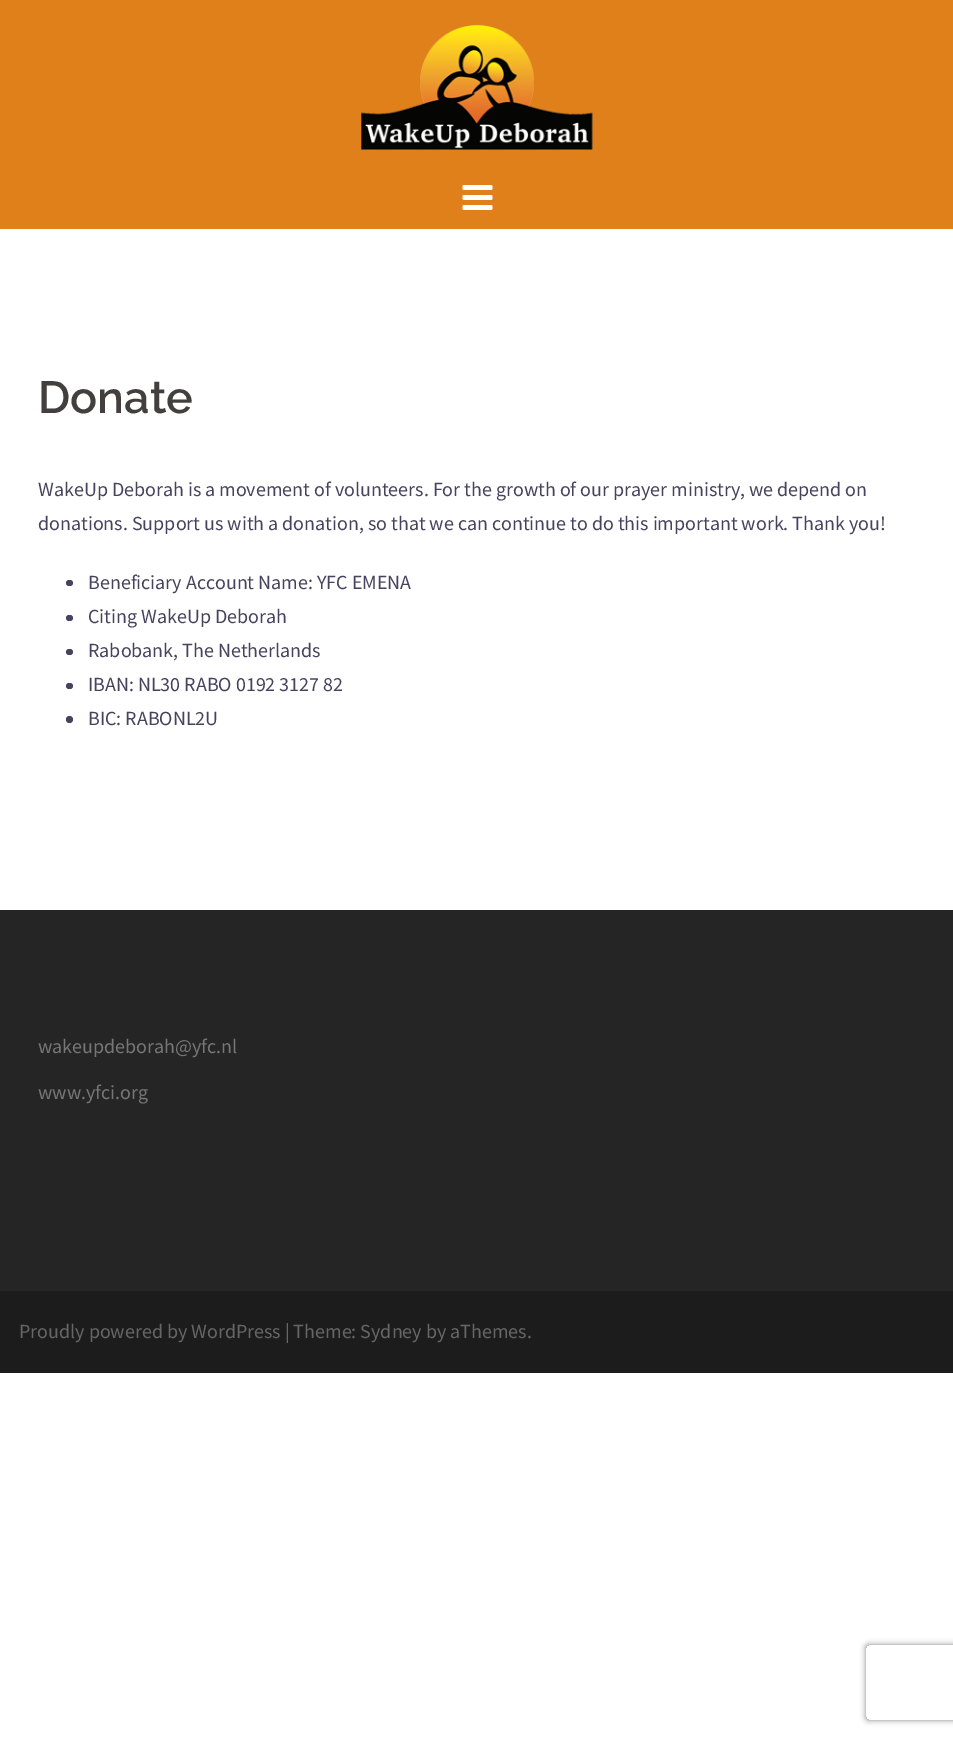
%!PS-Adobe-3.0
%%BoundingBox: 0 0 953 1737
%%LanguageLevel: 3
%%Pages: 1
%%EndComments
%%BeginProlog
/setink { 3 { 255 div 3 1 roll } repeat setrgbcolor } def
/usefont { [ exch dup neg 0 0 3 -1 roll 0 0 ] selectfont } def
/drawtext { setink usefont moveto show } def
/fillbox { setink rectfill } def
/setalpha { dup .setfillconstantalpha .setstrokeconstantalpha } def
/disc { newpath 0 360 arc closepath } def
/rrect { 5 dict begin { /r /h /w /y /x } { exch def } forall
  x r add y moveto x w add y 2 copy h add r arct x w add y h add x 1 index r arct
  x y h add x y r arct x y 2 copy exch w add exch r arct closepath end } def
/softshadow { 12 dict begin { /a /b /q /h /w /y /x } { exch def } forall gsave /was 0 def
  9 -2 -9 { dup b mul 4 div /e exch def 1 sub .425 mul 2.718 exch exp 1 add a .99 .min exch div /now exch def
    1 1 now sub 1 was sub div sub setalpha /was now def
    w h .min e 2 mul add 0 gt { x e sub y e sub w e 2 mul add h e 2 mul add
      q e add b .6 mul add w h .min 2 div e add .min 0 .max rrect fill } if } for grestore end } def
/drawimage { 5 dict begin { /h /w /y /x /name } { exch def } forall
  gsave x y translate w h scale
  w h 8 [w 0 0 h 0 0] name (r) file false 3 colorimage grestore end } def
%%EndProlog
%%BeginSetup
<< /PageSize [953 1737] /PageUsesTransparency true >> setpagedevice
%%EndSetup
%%Page: 1 1
0 .pushpdf14devicefilter
0 1737 translate 1 -1 scale
4 setmiterlimit
0 0 953 1737 255 255 255 fillbox
0 0 953 229 224 128 26 fillbox
(assets/img1.rgb) 361 25 232 125 drawimage
(assets/img2.rgb) 462 185 31 25 drawimage
(Donate) 38 413 /Raleway-SemiBold 45 68 63 63 drawtext
(WakeUp Deborah is a movement of volunteers. For the growth of our prayer ministry, we depend on) 38 496 /SourceSansPro-Regular 20 71 66 93 drawtext
(donations. Support us with a donation, so that we can continue to do this important work. Thank you!) 38 530 /SourceSansPro-Regular 20 71 66 93 drawtext
66 580 7 6 3 rrect fill
(Beneficiary Account Name: YFC EMENA) 88 589 /SourceSansPro-Regular 20 71 66 93 drawtext
66 615 7 6 3 rrect fill
(Citing WakeUp Deborah) 88 623 /SourceSansPro-Regular 20 71 66 93 drawtext
66 649 7 6 3 rrect fill
(Rabobank, The Netherlands) 88 657 /SourceSansPro-Regular 20 71 66 93 drawtext
66 683 7 6 3 rrect fill
(IBAN: NL30 RABO 0192 3127 82) 88 691 /SourceSansPro-Regular 20 71 66 93 drawtext
69.5 719.5 3.5 disc fill
(BIC: RABONL2U) 88 725 /SourceSansPro-Regular 20 71 66 93 drawtext
0 910 953 381 37 37 37 fillbox
(wakeupdeborah@yfc.nl) 38 1053 /SourceSansPro-Regular 20 118 118 118 drawtext
(www.yfci.org) 38 1099 /SourceSansPro-Regular 20 118 118 118 drawtext
0 1291 953 82 28 28 28 fillbox
(Proudly powered by WordPress | Theme: Sydney by aThemes.) 19 1338 /SourceSansPro-Regular 20 102 102 102 drawtext
gsave
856 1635 moveto 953 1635 lineto 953 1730 lineto 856 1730 lineto closepath 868.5 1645 moveto 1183.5 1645 lineto 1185 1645 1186 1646 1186 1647.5 curveto 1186 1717.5 lineto 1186 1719 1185 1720 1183.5 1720 curveto 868.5 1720 lineto 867 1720 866 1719 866 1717.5 curveto 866 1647.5 lineto 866 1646 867 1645 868.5 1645 curveto closepath eoclip newpath
128 128 128 setink
866 1645 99 75 2.5 3 1 softshadow
grestore
.poppdf14devicefilter showpage
%%EOF
